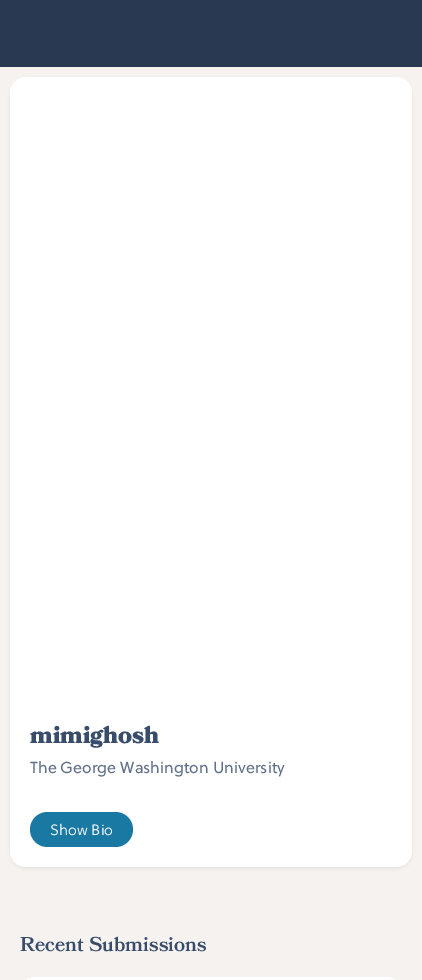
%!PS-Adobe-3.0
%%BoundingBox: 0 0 422 980
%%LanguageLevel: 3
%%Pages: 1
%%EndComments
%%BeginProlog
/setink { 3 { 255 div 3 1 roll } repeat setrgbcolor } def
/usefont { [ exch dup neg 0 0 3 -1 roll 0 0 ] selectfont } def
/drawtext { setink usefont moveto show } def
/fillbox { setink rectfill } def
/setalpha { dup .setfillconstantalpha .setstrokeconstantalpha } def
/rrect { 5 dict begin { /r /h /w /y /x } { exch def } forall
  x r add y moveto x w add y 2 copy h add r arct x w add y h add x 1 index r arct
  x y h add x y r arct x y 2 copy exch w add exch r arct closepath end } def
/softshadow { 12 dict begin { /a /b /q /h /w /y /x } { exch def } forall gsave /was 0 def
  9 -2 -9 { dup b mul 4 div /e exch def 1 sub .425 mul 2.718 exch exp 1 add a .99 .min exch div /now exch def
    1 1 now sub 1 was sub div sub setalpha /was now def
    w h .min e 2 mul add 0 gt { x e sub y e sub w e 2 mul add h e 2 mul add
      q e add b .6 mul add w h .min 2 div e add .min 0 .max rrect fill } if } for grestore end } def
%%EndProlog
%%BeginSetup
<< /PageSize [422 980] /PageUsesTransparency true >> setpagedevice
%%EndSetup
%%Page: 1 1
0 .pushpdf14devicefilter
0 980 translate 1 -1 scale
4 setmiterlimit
0 0 422 980 245 242 240 fillbox
0 0 422 67 41 57 81 fillbox
0 0 0 setink
10 79 402 790 16 2 0.05 softshadow
255 255 255 setink
10 77 402 790 16 rrect fill
(mimighosh) 30 743 /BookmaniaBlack-Black 24 57 77 107 drawtext
(The George Washington University) 30 773 /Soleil-Regular 16 97 113 137 drawtext
26 121 162 setink
30 812 103 35 17.5 rrect fill
(Show Bio) 50 835 /Soleil-Light 15 255 255 255 drawtext
(Recent Submissions) 20 951 /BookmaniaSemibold-SemiBold 20 57 77 107 drawtext
255 255 255 setink
20 977 382 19 16 rrect fill
.poppdf14devicefilter showpage
%%EOF
